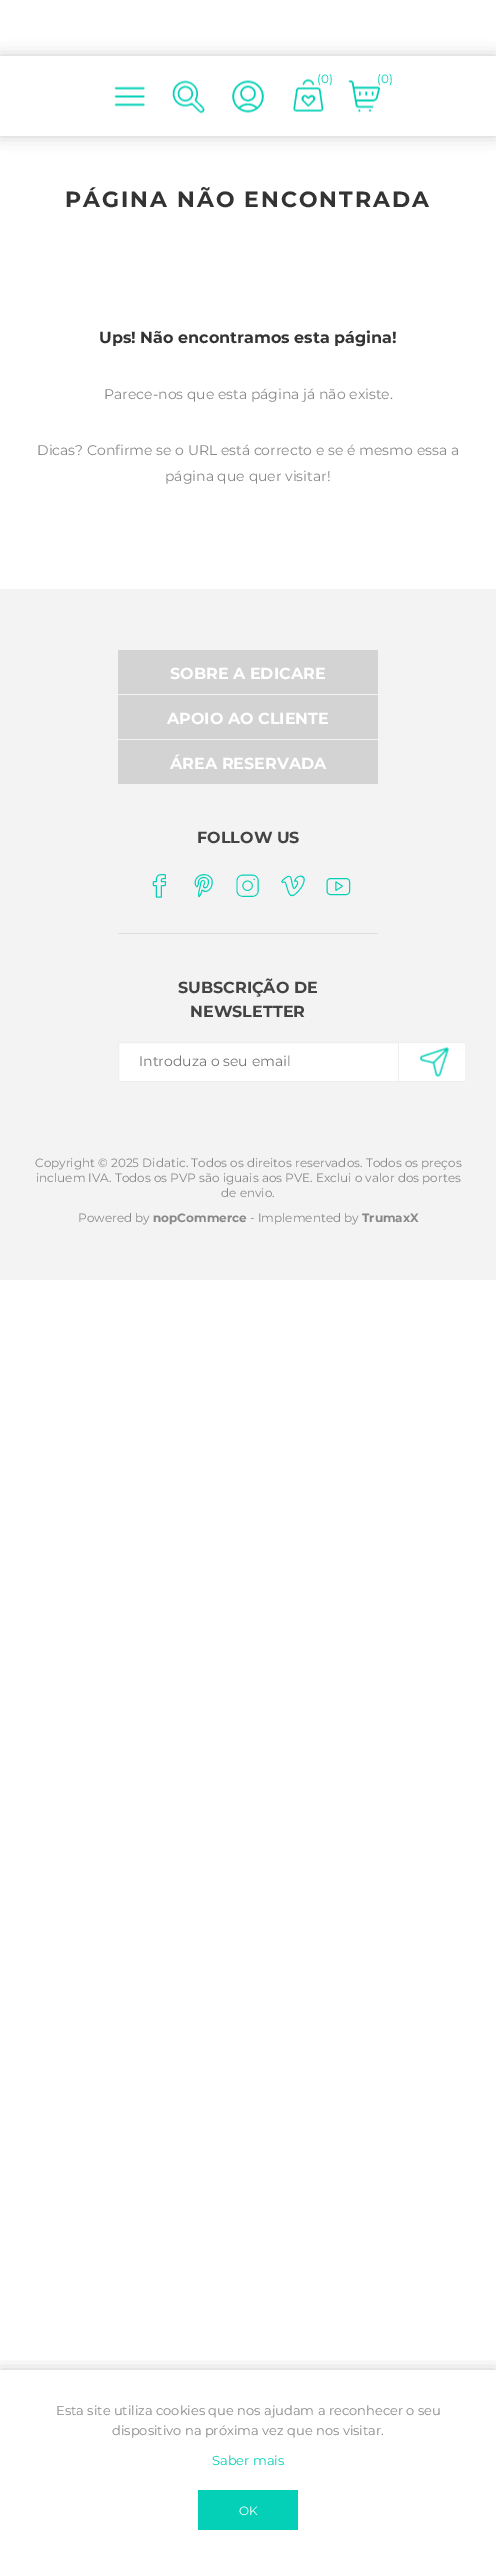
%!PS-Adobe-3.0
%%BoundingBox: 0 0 496 2560
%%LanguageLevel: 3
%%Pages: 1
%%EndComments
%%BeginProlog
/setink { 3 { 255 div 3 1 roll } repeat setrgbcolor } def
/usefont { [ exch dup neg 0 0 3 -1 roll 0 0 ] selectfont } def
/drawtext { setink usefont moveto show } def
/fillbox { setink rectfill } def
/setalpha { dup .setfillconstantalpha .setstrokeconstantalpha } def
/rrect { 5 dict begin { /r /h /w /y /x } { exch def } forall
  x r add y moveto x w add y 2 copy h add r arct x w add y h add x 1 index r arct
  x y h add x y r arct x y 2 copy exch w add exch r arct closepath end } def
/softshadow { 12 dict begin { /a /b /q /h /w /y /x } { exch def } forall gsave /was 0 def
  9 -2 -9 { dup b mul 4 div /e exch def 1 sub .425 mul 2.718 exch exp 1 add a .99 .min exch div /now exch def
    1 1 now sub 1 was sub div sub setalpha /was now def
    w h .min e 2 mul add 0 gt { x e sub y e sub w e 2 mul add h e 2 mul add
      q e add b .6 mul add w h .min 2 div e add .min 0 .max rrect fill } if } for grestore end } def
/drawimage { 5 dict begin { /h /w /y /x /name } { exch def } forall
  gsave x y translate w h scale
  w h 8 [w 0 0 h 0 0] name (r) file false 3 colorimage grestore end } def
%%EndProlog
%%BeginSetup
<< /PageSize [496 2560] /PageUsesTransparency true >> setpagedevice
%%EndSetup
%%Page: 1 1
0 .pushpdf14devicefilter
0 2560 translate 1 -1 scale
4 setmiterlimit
0 0 496 2560 255 255 255 fillbox
gsave
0 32 moveto 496 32 lineto 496 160 lineto 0 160 lineto closepath 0 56 moveto 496 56 lineto 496 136 lineto 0 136 lineto closepath eoclip newpath
0 0 0 setink
0 56 496 80 0 7.5 0.2 softshadow
grestore
114 86 31 21 3 208 182 fillbox
(assets/img1.rgb) 103 71 50 50 drawimage
172 80 33 34 3 208 182 fillbox
(assets/img2.rgb) 163 71 50 50 drawimage
232 80 32 33 3 208 182 fillbox
(assets/img3.rgb) 223 71 50 50 drawimage
293 79 31 33 3 208 182 fillbox
(assets/img4.rgb) 283 71 50 50 drawimage
(\(0\)) 317 83 /Montserrat-Regular 12 3 208 182 drawtext
348 80 32 33 3 208 182 fillbox
(assets/img5.rgb) 343 71 50 50 drawimage
(\(0\)) 377 83 /Montserrat-Regular 12 3 208 182 drawtext
/Montserrat-Bold 22 usefont
51 51 51 setink
65 207 moveto 2 0 (PÁGINA NÃO ENCONTRADA) ashow
(Ups! Não encontramos esta página!) 99 343 /Montserrat-Bold 16 51 51 51 drawtext
(Parece-nos que esta página já não existe.) 104 399 /Montserrat-Regular 14 136 136 136 drawtext
(Dicas? Confirme se o URL está correcto e se é mesmo essa a) 37 455 /Montserrat-Regular 14 136 136 136 drawtext
(página que quer visitar!) 165 481 /Montserrat-Regular 14 136 136 136 drawtext
0 589 496 691 243 243 243 fillbox
118 650 260 44 211 211 211 fillbox
(SOBRE A EDICARE) 170 679 /Montserrat-Bold 16 255 255 255 drawtext
118 695 260 44 211 211 211 fillbox
(APOIO AO CLIENTE) 167 724 /Montserrat-Bold 16 255 255 255 drawtext
118 740 260 44 211 211 211 fillbox
(ÁREA RESERVADA) 170 769 /Montserrat-Bold 16 255 255 255 drawtext
(FOLLOW US) 197 843 /Montserrat-Bold 16 68 68 68 drawtext
118 933 260 1 221 221 221 fillbox
152 874 15 24 3 208 182 fillbox
(assets/img6.rgb) 141 868 35 35 drawimage
194 874 19 24 3 208 182 fillbox
(assets/img7.rgb) 186 868 35 35 drawimage
236 874 23 23 3 208 182 fillbox
(assets/img8.rgb) 231 868 35 35 drawimage
281 875 24 22 3 208 182 fillbox
(assets/img9.rgb) 276 868 35 35 drawimage
326 878 25 18 3 208 182 fillbox
(assets/img10.rgb) 321 868 35 35 drawimage
(SUBSCRIÇÃO DE) 178 993 /Montserrat-Bold 16 68 68 68 drawtext
(NEWSLETTER) 190 1017 /Montserrat-Bold 16 68 68 68 drawtext
119 1043 279 38 255 255 255 fillbox
gsave
31 609 434 521 rectclip
238 238 238 setink
118.5 1042.5 350 39 rectstroke
grestore
(Introduza o seu email) 139 1066 /Montserrat-Regular 14 117 117 117 drawtext
419 1047 30 30 3 208 182 fillbox
(assets/img11.rgb) 399 1043 66 38 drawimage
398 1043 1 38 238 238 238 fillbox
(Copyright © 2025 Didatic. Todos os direitos reservados. Todos os preços) 35 1167 /Montserrat-Regular 12 136 136 136 drawtext
(incluem IVA. Todos os PVP são iguais aos PVE. Exclui o valor dos portes) 36 1182 /Montserrat-Regular 12 136 136 136 drawtext
(de envio.) 221 1197 /Montserrat-Regular 12 136 136 136 drawtext
(Powered by) 78 1222 /Montserrat-Regular 12 136 136 136 drawtext
(nopCommerce) 153 1222 /Montserrat-Bold 12 136 136 136 drawtext
(- Implemented by) 250 1222 /Montserrat-Regular 12 136 136 136 drawtext
(TrumaxX) 362 1222 /Montserrat-Bold 12 136 136 136 drawtext
gsave
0 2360 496 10 rectclip
0 0 0 setink
0 2370 496 190 0 7.5 0.2 softshadow
grestore
(Esta site utiliza cookies que nos ajudam a reconhecer o seu) 56 2415 /Montserrat-Regular 13 136 136 136 drawtext
(dispositivo na próxima vez que nos visitar.) 112 2435 /Montserrat-Regular 13 136 136 136 drawtext
(Saber mais) 212 2465 /Montserrat-Regular 13 3 208 182 drawtext
198 2490 100 40 3 208 182 fillbox
(OK) 239 2515 /Montserrat-Regular 12 255 255 255 drawtext
.poppdf14devicefilter showpage
%%EOF
